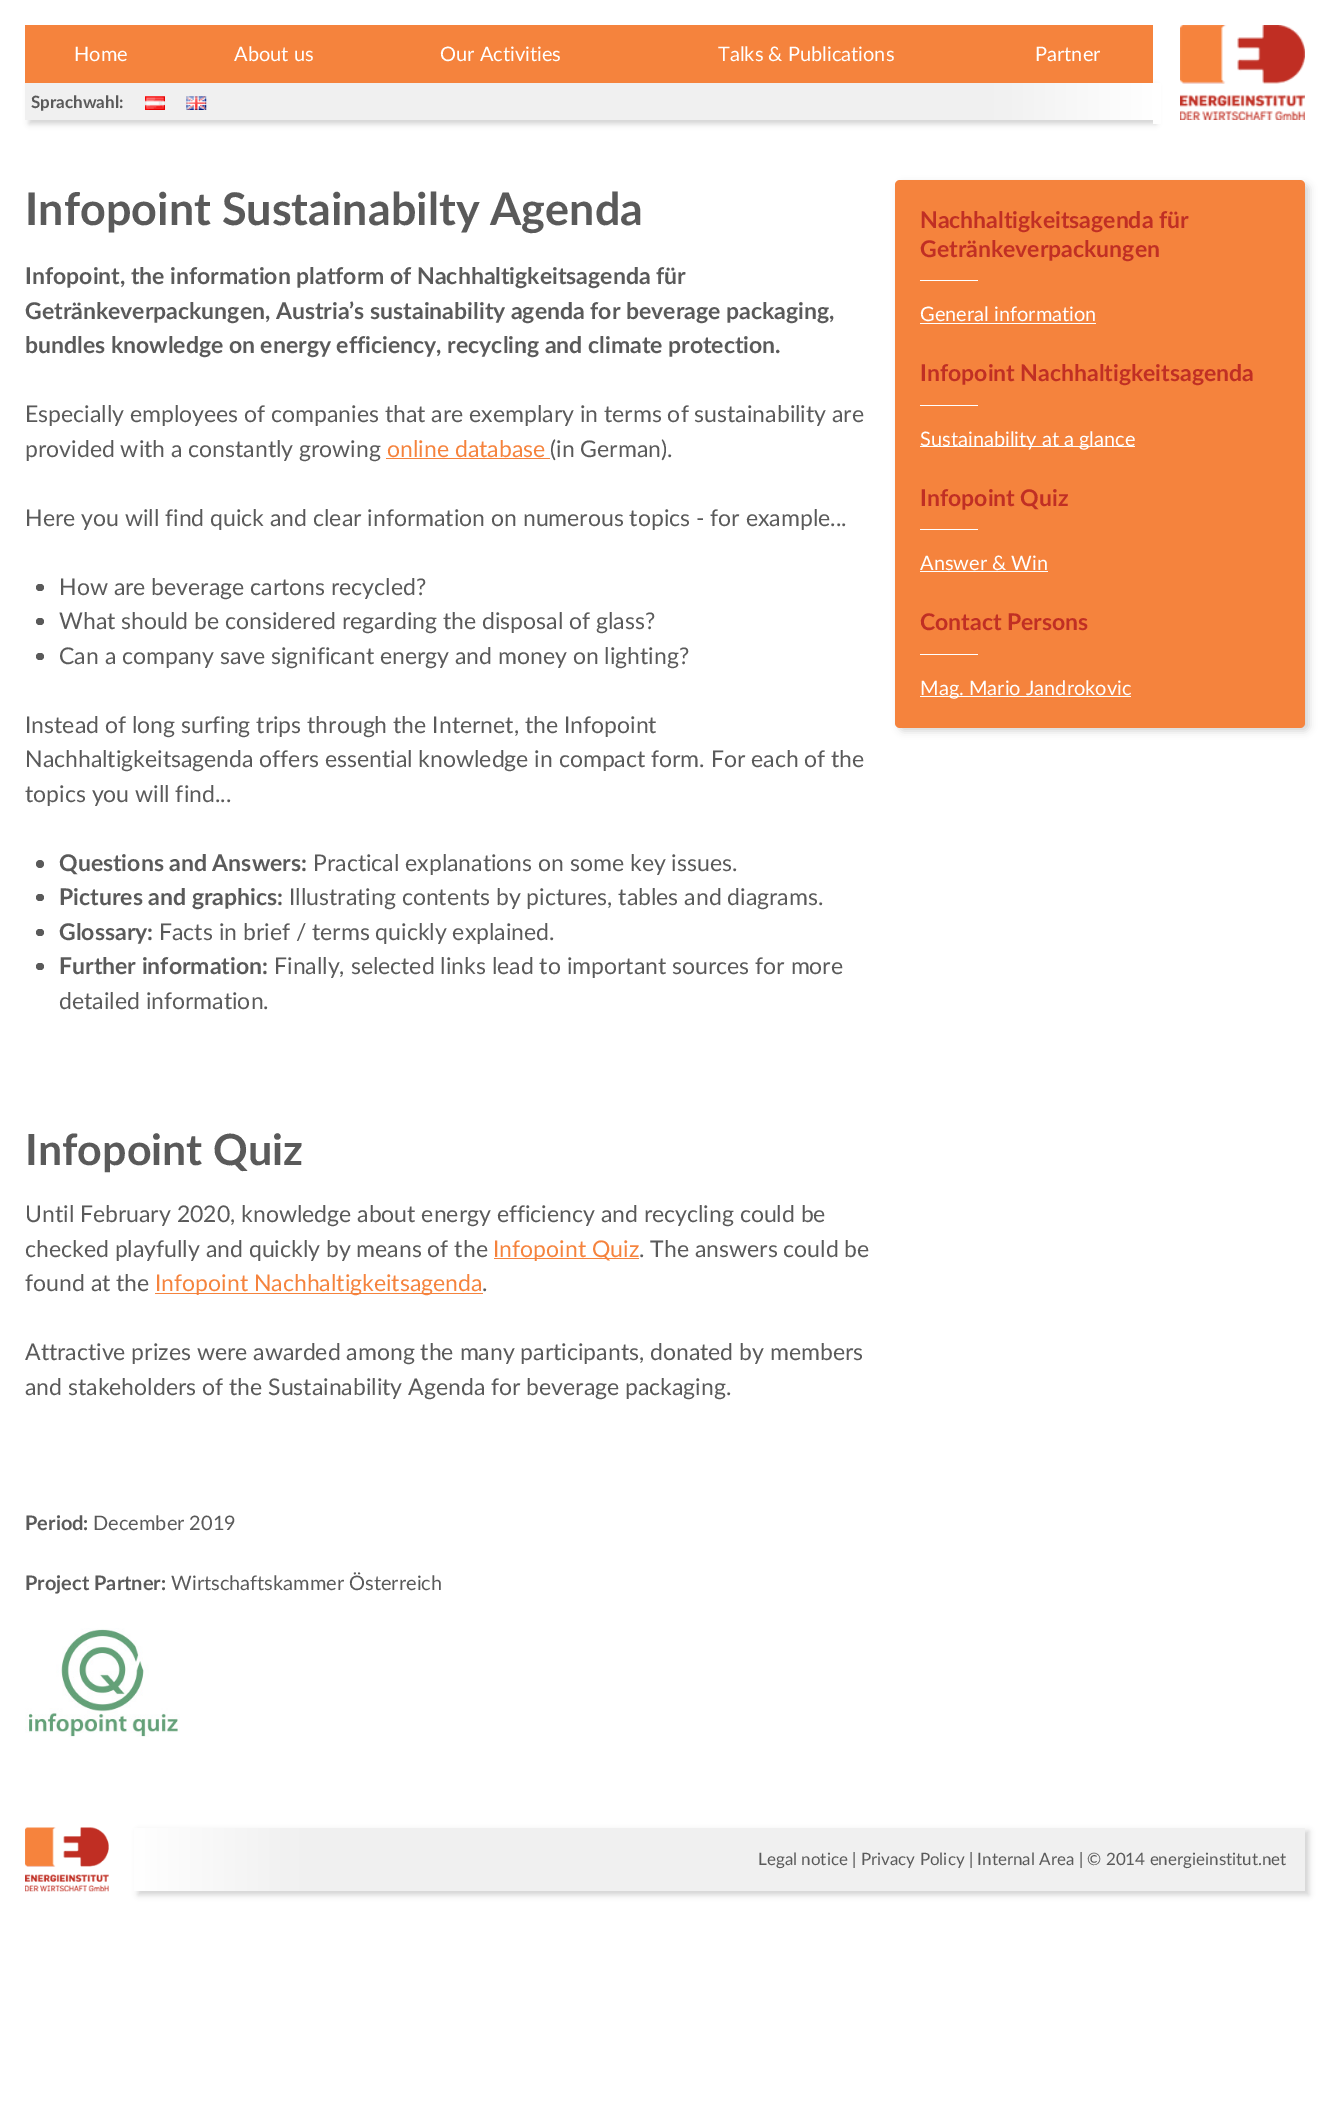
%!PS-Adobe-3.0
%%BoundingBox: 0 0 1330 2108
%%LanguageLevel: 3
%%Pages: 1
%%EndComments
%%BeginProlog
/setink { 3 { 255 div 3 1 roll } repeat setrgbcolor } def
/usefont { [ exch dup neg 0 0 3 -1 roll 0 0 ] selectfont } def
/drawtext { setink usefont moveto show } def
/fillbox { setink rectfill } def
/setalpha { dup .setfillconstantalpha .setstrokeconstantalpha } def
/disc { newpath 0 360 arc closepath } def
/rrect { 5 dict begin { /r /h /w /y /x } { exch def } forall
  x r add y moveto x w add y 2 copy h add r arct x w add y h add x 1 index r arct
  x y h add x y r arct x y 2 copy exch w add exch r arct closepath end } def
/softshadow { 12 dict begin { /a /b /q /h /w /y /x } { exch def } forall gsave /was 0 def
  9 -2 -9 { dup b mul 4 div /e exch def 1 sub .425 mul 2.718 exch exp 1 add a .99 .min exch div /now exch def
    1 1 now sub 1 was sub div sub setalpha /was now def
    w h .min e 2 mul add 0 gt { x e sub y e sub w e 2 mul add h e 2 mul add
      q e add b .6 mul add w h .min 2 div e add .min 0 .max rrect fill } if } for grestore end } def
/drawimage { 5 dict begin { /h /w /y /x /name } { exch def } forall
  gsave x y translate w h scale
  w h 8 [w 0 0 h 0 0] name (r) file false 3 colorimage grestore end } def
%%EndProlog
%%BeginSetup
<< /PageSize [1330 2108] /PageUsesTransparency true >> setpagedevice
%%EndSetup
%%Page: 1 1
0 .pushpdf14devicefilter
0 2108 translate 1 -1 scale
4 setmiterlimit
0 0 1330 2108 255 255 255 fillbox
108 108 108 setink
29 86 1127 38 0 3 0.3 softshadow
25 25 1128 58 245 131 61 fillbox
(Home) 74 61 /Lato-Regular 20 255 255 255 drawtext
(About us) 234 61 /Lato-Regular 20 255 255 255 drawtext
(Our Activities) 440 61 /Lato-Regular 20 255 255 255 drawtext
(Talks & Publications) 718 61 /Lato-Regular 20 255 255 255 drawtext
(Partner) 1035 61 /Lato-Regular 20 255 255 255 drawtext
gsave 25 83 moveto 1153 83 lineto 1153 120 lineto 25 120 lineto closepath clip newpath
<< /ShadingType 2 /ColorSpace /DeviceRGB /Coords [25 101 1153 101] /Extend [true true] /Function << /FunctionType 3 /Domain [0 1] /Functions [<< /FunctionType 2 /Domain [0 1] /C0 [0.941 0.941 0.941] /C1 [0.941 0.941 0.941] /N 1 >> << /FunctionType 2 /Domain [0 1] /C0 [0.941 0.941 0.941] /C1 [1 1 1] /N 1 >>] /Bounds [0.85] /Encode [0 1 0 1] >> >> shfill grestore
(Sprachwahl:) 31 108 /Lato-Bold 17 90 90 90 drawtext
(assets/img1.rgb) 145 96 20 14 drawimage
(assets/img2.rgb) 186 96 21 14 drawimage
1153 83 8 41 255 255 255 fillbox
(assets/img3.rgb) 1180 25 125 95 drawimage
(Infopoint Sustainabilty Agenda) 25 225 /Lato-Bold 45 90 90 90 drawtext
(Infopoint, the information platform of Nachhaltigkeitsagenda für) 25 284 /Lato-Bold 23 90 90 90 drawtext
(Getränkeverpackungen, Austria’s sustainability agenda for beverage packaging,) 25 319 /Lato-Bold 23 90 90 90 drawtext
(bundles knowledge on energy efficiency, recycling and climate protection.) 25 353 /Lato-Bold 23 90 90 90 drawtext
(Especially employees of companies that are exemplary in terms of sustainability are) 25 422 /Lato-Regular 23 90 90 90 drawtext
(provided with a constantly growing) 25 457 /Lato-Regular 23 90 90 90 drawtext
(online database) 387 457 /Lato-Regular 23 245 131 61 drawtext
386 458 164 1 245 131 61 fillbox
(\(in German\).) 550 457 /Lato-Regular 23 90 90 90 drawtext
(Here you will find quick and clear information on numerous topics - for example...) 25 526 /Lato-Regular 23 90 90 90 drawtext
36 584 8 7 3.5 rrect fill
(How are beverage cartons recycled?) 59 595 /Lato-Regular 23 90 90 90 drawtext
36 618 8 7 3.5 rrect fill
(What should be considered regarding the disposal of glass?) 59 629 /Lato-Regular 23 90 90 90 drawtext
36 653 8 7 3.5 rrect fill
(Can a company save significant energy and money on lighting?) 59 664 /Lato-Regular 23 90 90 90 drawtext
(Instead of long surfing trips through the Internet, the Infopoint) 25 733 /Lato-Regular 23 90 90 90 drawtext
(Nachhaltigkeitsagenda offers essential knowledge in compact form. For each of the) 25 767 /Lato-Regular 23 90 90 90 drawtext
(topics you will find...) 25 802 /Lato-Regular 23 90 90 90 drawtext
40 864 4 disc fill
(Questions and Answers:) 59 871 /Lato-Bold 23 90 90 90 drawtext
(Practical explanations on some key issues.) 313 871 /Lato-Regular 23 90 90 90 drawtext
36 894 8 7 3.5 rrect fill
(Pictures and graphics:) 59 905 /Lato-Bold 23 90 90 90 drawtext
(Illustrating contents by pictures, tables and diagrams.) 289 905 /Lato-Regular 23 90 90 90 drawtext
36 929 8 7 3.5 rrect fill
(Glossary:) 59 940 /Lato-Bold 23 90 90 90 drawtext
(Facts in brief / terms quickly explained.) 159 940 /Lato-Regular 23 90 90 90 drawtext
36 963 8 7 3.5 rrect fill
(Further information:) 59 974 /Lato-Bold 23 90 90 90 drawtext
(Finally, selected links lead to important sources for more) 274 974 /Lato-Regular 23 90 90 90 drawtext
(detailed information.) 59 1009 /Lato-Regular 23 90 90 90 drawtext
(Infopoint Quiz) 25 1165 /Lato-Bold 43 90 90 90 drawtext
(Until February 2020, knowledge about energy efficiency and recycling could be) 25 1222 /Lato-Regular 23 90 90 90 drawtext
(checked playfully and quickly by means of the) 25 1257 /Lato-Regular 23 90 90 90 drawtext
494 1258 145 1 245 131 61 fillbox
(Infopoint Quiz) 493 1257 /Lato-Regular 23 245 131 61 drawtext
(. The answers could be) 639 1257 /Lato-Regular 23 90 90 90 drawtext
(found at the) 25 1291 /Lato-Regular 23 90 90 90 drawtext
155 1293 328 1 245 131 61 fillbox
(Infopoint Nachhaltigkeitsagenda) 155 1291 /Lato-Regular 23 245 131 61 drawtext
(.) 482 1291 /Lato-Regular 23 90 90 90 drawtext
(Attractive prizes were awarded among the many participants, donated by members) 25 1360 /Lato-Regular 23 90 90 90 drawtext
(and stakeholders of the Sustainability Agenda for beverage packaging.) 25 1395 /Lato-Regular 23 90 90 90 drawtext
(Period:) 25 1530 /Lato-Bold 20 90 90 90 drawtext
(December 2019) 93 1530 /Lato-Regular 20 90 90 90 drawtext
(Project Partner:) 25 1590 /Lato-Bold 20 90 90 90 drawtext
(Wirtschaftskammer Österreich) 171 1590 /Lato-Regular 20 90 90 90 drawtext
(assets/img4.rgb) 25 1628 155 109 drawimage
108 108 108 setink
899 184 410 547 5 4 0.3 softshadow
245 131 61 setink
895 180 410 548 5 rrect fill
(Nachhaltigkeitsagenda für) 920 228 /Lato-Bold 23 192 47 36 drawtext
(Getränkeverpackungen) 920 257 /Lato-Bold 23 192 47 36 drawtext
920 280 58 1 255 255 255 fillbox
(General information) 920 321 /Lato-Regular 20 255 255 255 drawtext
920 323 176 1 255 255 255 fillbox
(Infopoint Nachhaltigkeitsagenda) 920 381 /Lato-Bold 23 192 47 36 drawtext
920 405 58 1 255 255 255 fillbox
920 446 215 1 255 255 255 fillbox
(Sustainability at a glance) 920 446 /Lato-Regular 20 255 255 255 drawtext
(Infopoint Quiz) 920 506 /Lato-Bold 23 192 47 36 drawtext
920 529 58 1 255 255 255 fillbox
(Answer & Win) 920 570 /Lato-Regular 20 255 255 255 drawtext
920 571 128 1 255 255 255 fillbox
(Contact Persons) 920 630 /Lato-Bold 23 192 47 36 drawtext
920 654 58 1 255 255 255 fillbox
920 696 211 1 255 255 255 fillbox
(Mag. Mario Jandrokovic) 920 695 /Lato-Regular 20 255 255 255 drawtext
(assets/img5.rgb) 25 1827 84 65 drawimage
108 108 108 setink
138 1831 1171 64 0 3 0.3 softshadow
gsave 134 1828 moveto 1305 1828 lineto 1305 1891 lineto 134 1891 lineto closepath clip newpath
<< /ShadingType 2 /ColorSpace /DeviceRGB /Coords [134 1859 1305 1859] /Extend [true true] /Function << /FunctionType 3 /Domain [0 1] /Functions [<< /FunctionType 2 /Domain [0 1] /C0 [1 1 1] /C1 [0.941 0.941 0.941] /N 1 >> << /FunctionType 2 /Domain [0 1] /C0 [0.941 0.941 0.941] /C1 [0.941 0.941 0.941] /N 1 >>] /Bounds [0.15] /Encode [0 1 0 1] >> >> shfill grestore
(Legal notice | Privacy Policy | Internal Area | © 2014 energieinstitut.net) 758 1865 /Lato-Regular 17 90 90 90 drawtext
.poppdf14devicefilter showpage
%%EOF
